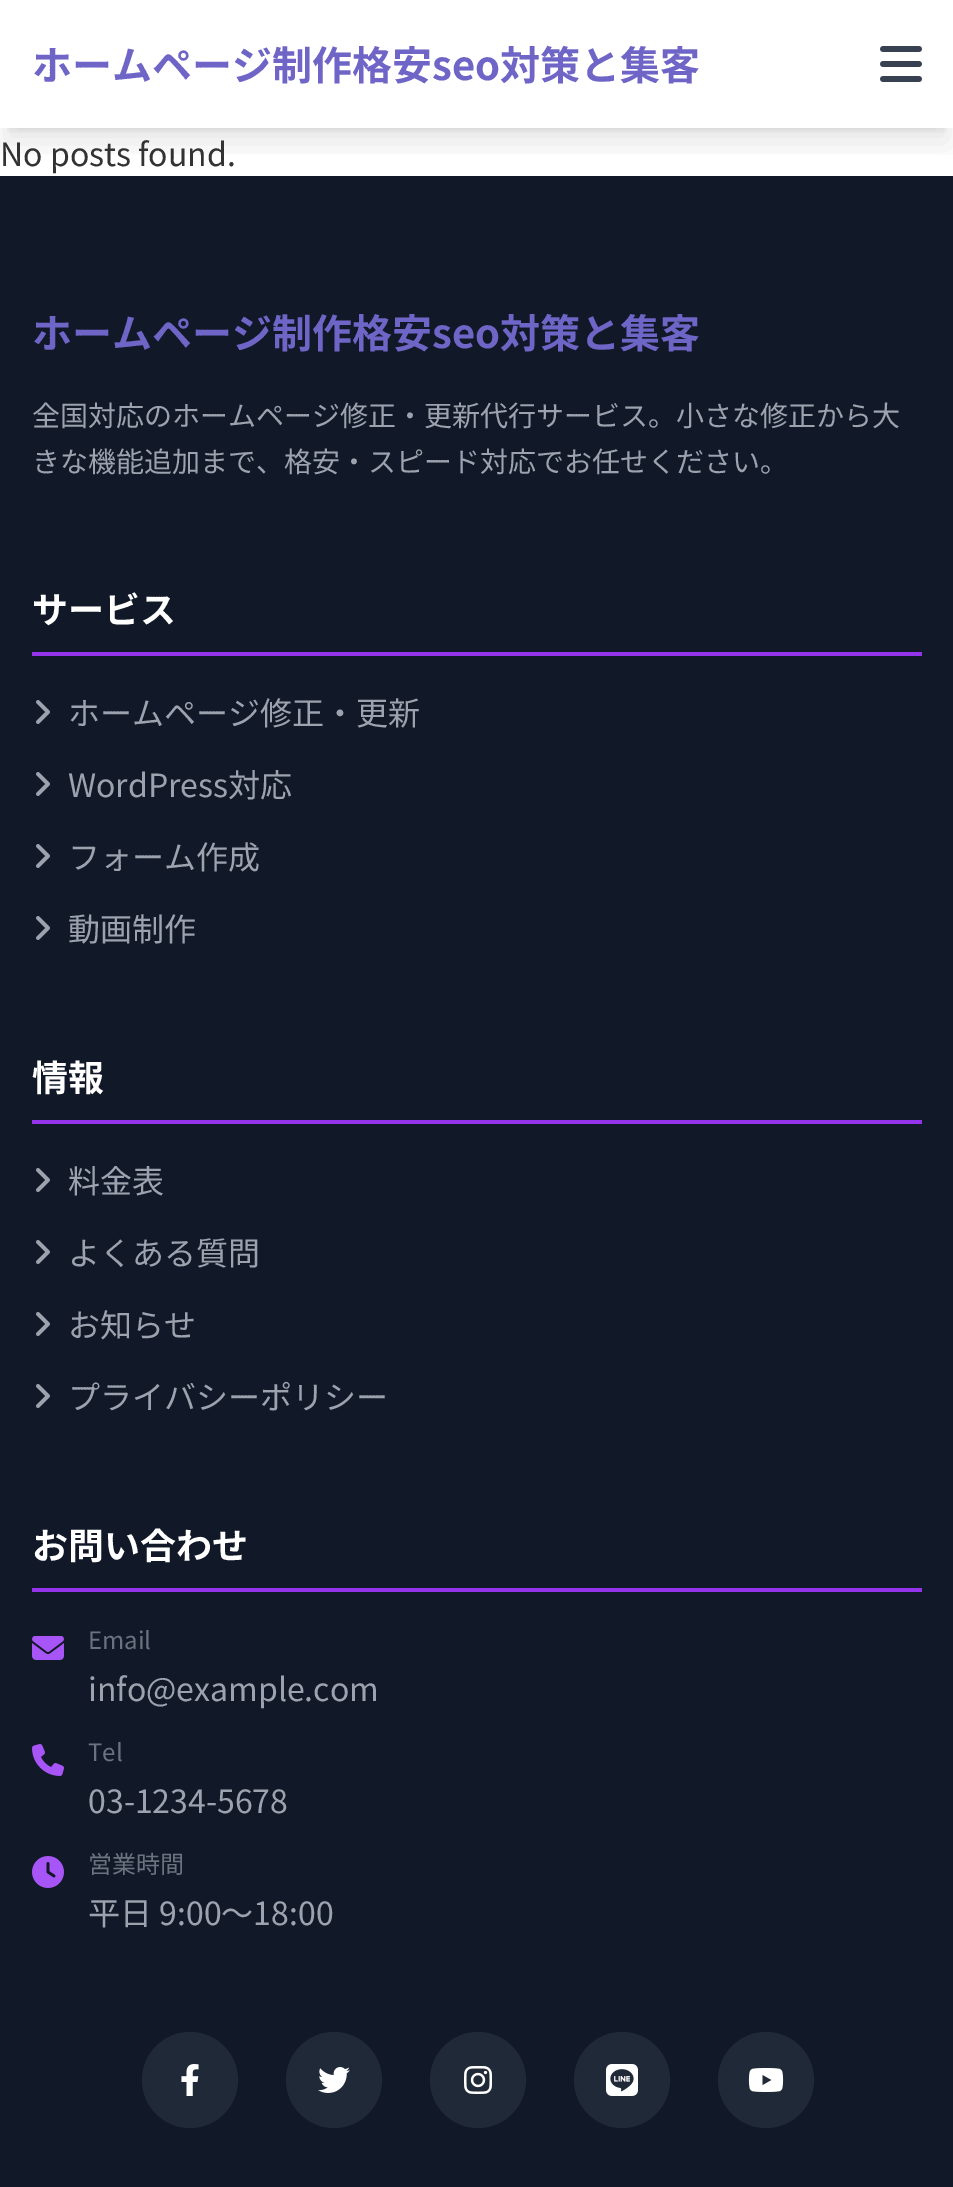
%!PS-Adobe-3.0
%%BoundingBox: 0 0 953 2187
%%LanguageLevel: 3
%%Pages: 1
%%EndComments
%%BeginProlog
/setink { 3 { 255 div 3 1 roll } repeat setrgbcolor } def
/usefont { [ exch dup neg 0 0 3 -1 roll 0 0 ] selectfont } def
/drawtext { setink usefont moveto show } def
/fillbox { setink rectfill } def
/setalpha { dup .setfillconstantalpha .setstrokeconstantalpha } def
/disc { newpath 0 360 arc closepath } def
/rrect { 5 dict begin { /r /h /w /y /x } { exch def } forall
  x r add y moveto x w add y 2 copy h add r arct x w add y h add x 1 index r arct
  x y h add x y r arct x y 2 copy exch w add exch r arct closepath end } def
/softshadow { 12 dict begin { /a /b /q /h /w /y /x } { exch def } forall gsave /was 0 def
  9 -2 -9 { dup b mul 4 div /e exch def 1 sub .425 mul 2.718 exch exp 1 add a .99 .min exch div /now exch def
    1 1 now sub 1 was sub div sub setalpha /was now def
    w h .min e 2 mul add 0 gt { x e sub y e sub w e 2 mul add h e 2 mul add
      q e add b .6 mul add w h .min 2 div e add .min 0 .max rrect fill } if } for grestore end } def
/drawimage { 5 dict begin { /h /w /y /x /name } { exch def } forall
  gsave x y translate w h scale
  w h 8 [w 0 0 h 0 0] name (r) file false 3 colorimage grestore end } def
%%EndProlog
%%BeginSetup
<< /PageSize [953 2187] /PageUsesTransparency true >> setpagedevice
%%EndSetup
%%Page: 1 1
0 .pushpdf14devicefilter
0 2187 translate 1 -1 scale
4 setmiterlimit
0 0 953 2187 255 255 255 fillbox
gsave
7 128 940 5 rectclip
0 0 0 setink
8 16 938 112 0 6 0.1 softshadow
grestore
0 176 953 2011 17 24 39 fillbox
gsave
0 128 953 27 rectclip
0 0 0 setink
6 26 942 116 0 15 0.1 softshadow
grestore
(ホームページ制作格安seo対策と集客) 32 80 /NotoSansJP-Bold 40 110 101 198 drawtext
(assets/img1.rgb) 880 46 42 36 drawimage
(No posts found.) 0 166 /NotoSansJP-Regular 32 51 51 51 drawtext
(ホームページ制作格安seo対策と集客) 32 348 /NotoSansJP-Bold 40 110 101 198 drawtext
(全国対応のホームページ修正・更新代行サービス。小さな修正から大) 32 426 /NotoSansJP-Regular 28 156 163 175 drawtext
(きな機能追加まで、格安・スピード対応でお任せください。) 32 472 /NotoSansJP-Regular 28 156 163 175 drawtext
32 652 890 4 147 51 234 fillbox
(サービス) 32 623 /NotoSansJP-Bold 36 255 255 255 drawtext
(assets/img2.rgb) 36 700 14 24 drawimage
(ホームページ修正・更新) 68 725 /NotoSansJP-Regular 32 156 163 175 drawtext
(assets/img2.rgb) 36 772 14 24 drawimage
(WordPress対応) 68 797 /NotoSansJP-Regular 32 156 163 175 drawtext
(assets/img2.rgb) 36 844 14 24 drawimage
(フォーム作成) 68 869 /NotoSansJP-Regular 32 156 163 175 drawtext
(assets/img2.rgb) 36 916 14 24 drawimage
(動画制作) 68 941 /NotoSansJP-Regular 32 156 163 175 drawtext
32 1120 890 4 147 51 234 fillbox
(情報) 32 1091 /NotoSansJP-Bold 36 255 255 255 drawtext
(assets/img2.rgb) 36 1168 14 24 drawimage
(料金表) 68 1193 /NotoSansJP-Regular 32 156 163 175 drawtext
(assets/img2.rgb) 36 1240 14 24 drawimage
(よくある質問) 68 1265 /NotoSansJP-Regular 32 156 163 175 drawtext
(assets/img2.rgb) 36 1312 14 24 drawimage
(お知らせ) 68 1337 /NotoSansJP-Regular 32 156 163 175 drawtext
(assets/img2.rgb) 36 1384 14 24 drawimage
(プライバシーポリシー) 68 1409 /NotoSansJP-Regular 32 156 163 175 drawtext
32 1588 890 4 147 51 234 fillbox
(お問い合わせ) 32 1559 /NotoSansJP-Bold 36 255 255 255 drawtext
(assets/img3.rgb) 32 1636 32 24 drawimage
(Email) 88 1649 /NotoSansJP-Regular 24 107 114 128 drawtext
(info@example.com) 88 1701 /NotoSansJP-Regular 32 156 163 175 drawtext
(assets/img4.rgb) 32 1744 32 32 drawimage
(Tel) 88 1761 /NotoSansJP-Regular 24 107 114 128 drawtext
(03-1234-5678) 88 1813 /NotoSansJP-Regular 32 156 163 175 drawtext
(assets/img5.rgb) 32 1856 32 32 drawimage
(営業時間) 88 1873 /NotoSansJP-Regular 24 107 114 128 drawtext
(平日 9:00〜18:00) 88 1925 /NotoSansJP-Regular 32 156 163 175 drawtext
31 41 55 setink
190 2080 48 disc fill
(assets/img6.rgb) 181 2064 18 32 drawimage
334 2080 48 disc fill
(assets/img7.rgb) 318 2067 32 26 drawimage
478 2080 48 disc fill
(assets/img8.rgb) 464 2066 28 28 drawimage
622 2080 48 disc fill
(assets/img9.rgb) 606 2064 32 32 drawimage
766 2080 48 disc fill
(assets/img10.rgb) 748 2068 36 24 drawimage
.poppdf14devicefilter showpage
%%EOF
